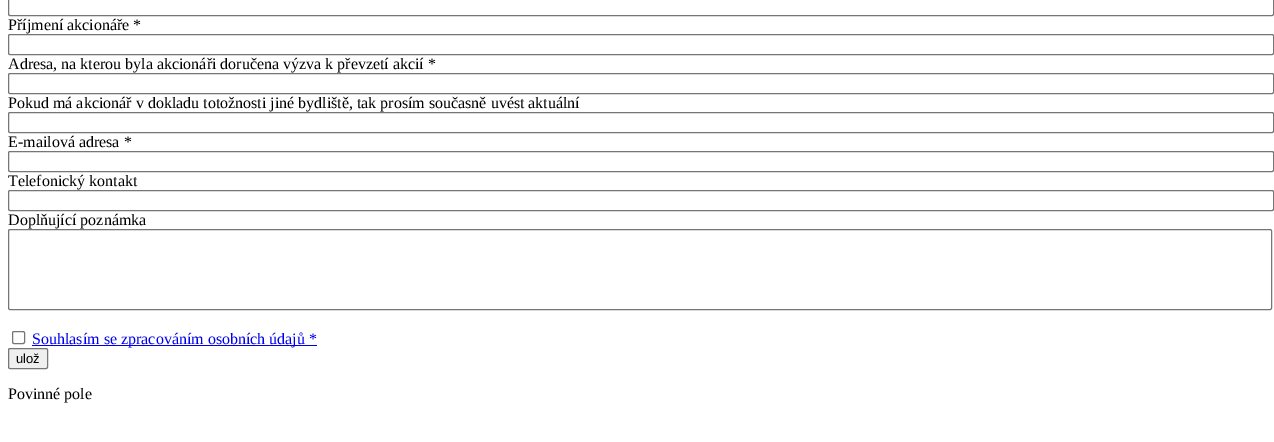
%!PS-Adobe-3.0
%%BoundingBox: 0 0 1274 442
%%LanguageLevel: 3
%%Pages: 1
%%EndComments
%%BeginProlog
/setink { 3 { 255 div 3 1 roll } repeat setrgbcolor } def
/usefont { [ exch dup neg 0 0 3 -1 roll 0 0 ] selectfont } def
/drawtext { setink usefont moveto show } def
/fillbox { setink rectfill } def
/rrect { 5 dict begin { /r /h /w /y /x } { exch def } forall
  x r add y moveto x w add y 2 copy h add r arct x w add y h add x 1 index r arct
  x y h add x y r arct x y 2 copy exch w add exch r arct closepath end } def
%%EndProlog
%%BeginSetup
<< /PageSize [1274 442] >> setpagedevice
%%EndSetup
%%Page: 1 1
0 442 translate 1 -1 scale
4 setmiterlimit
0 0 1274 442 255 255 255 fillbox
118 118 118 setink
8.5 -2.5 1265 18 1.5 rrect stroke
(Příjmení akcionáře *) 8 30 /LiberationSerif-Regular 16 0 0 0 drawtext
118 118 118 setink
8.5 34.5 1265 20 1.5 rrect stroke
(Adresa, na kterou byla akcionáři doručena výzva k převzetí akcií *) 8 69 /LiberationSerif-Regular 16 0 0 0 drawtext
118 118 118 setink
8.5 73.5 1265 20 1.5 rrect stroke
(Pokud má akcionář v dokladu totožnosti jiné bydliště, tak prosím současně uvést aktuální) 8 108 /LiberationSerif-Regular 16 0 0 0 drawtext
118 118 118 setink
8.5 112.5 1265 20 1.5 rrect stroke
(E-mailová adresa *) 8 147 /LiberationSerif-Regular 16 0 0 0 drawtext
118 118 118 setink
8.5 151.5 1265 20 1.5 rrect stroke
(Telefonický kontakt) 8 186 /LiberationSerif-Regular 16 0 0 0 drawtext
118 118 118 setink
8.5 190.5 1265 20 1.5 rrect stroke
(Doplňující poznámka) 8 225 /LiberationSerif-Regular 16 0 0 0 drawtext
118 118 118 setink
8.5 229.5 1263 80 1.5 rrect stroke
12.5 331.5 12 12 1.5 rrect stroke
32 345 285 1 0 0 238 fillbox
(Souhlasím se zpracováním osobních údajů *) 32 344 /LiberationSerif-Regular 16 0 0 238 drawtext
239 239 239 setink
8.5 348.5 39 20 1.5 rrect gsave fill grestore
118 118 118 setink
stroke
(ulož) 16 363 /LiberationSans-Regular 13 0 0 0 drawtext
(Povinné pole) 8 399 /LiberationSerif-Regular 16 0 0 0 drawtext
showpage
%%EOF
